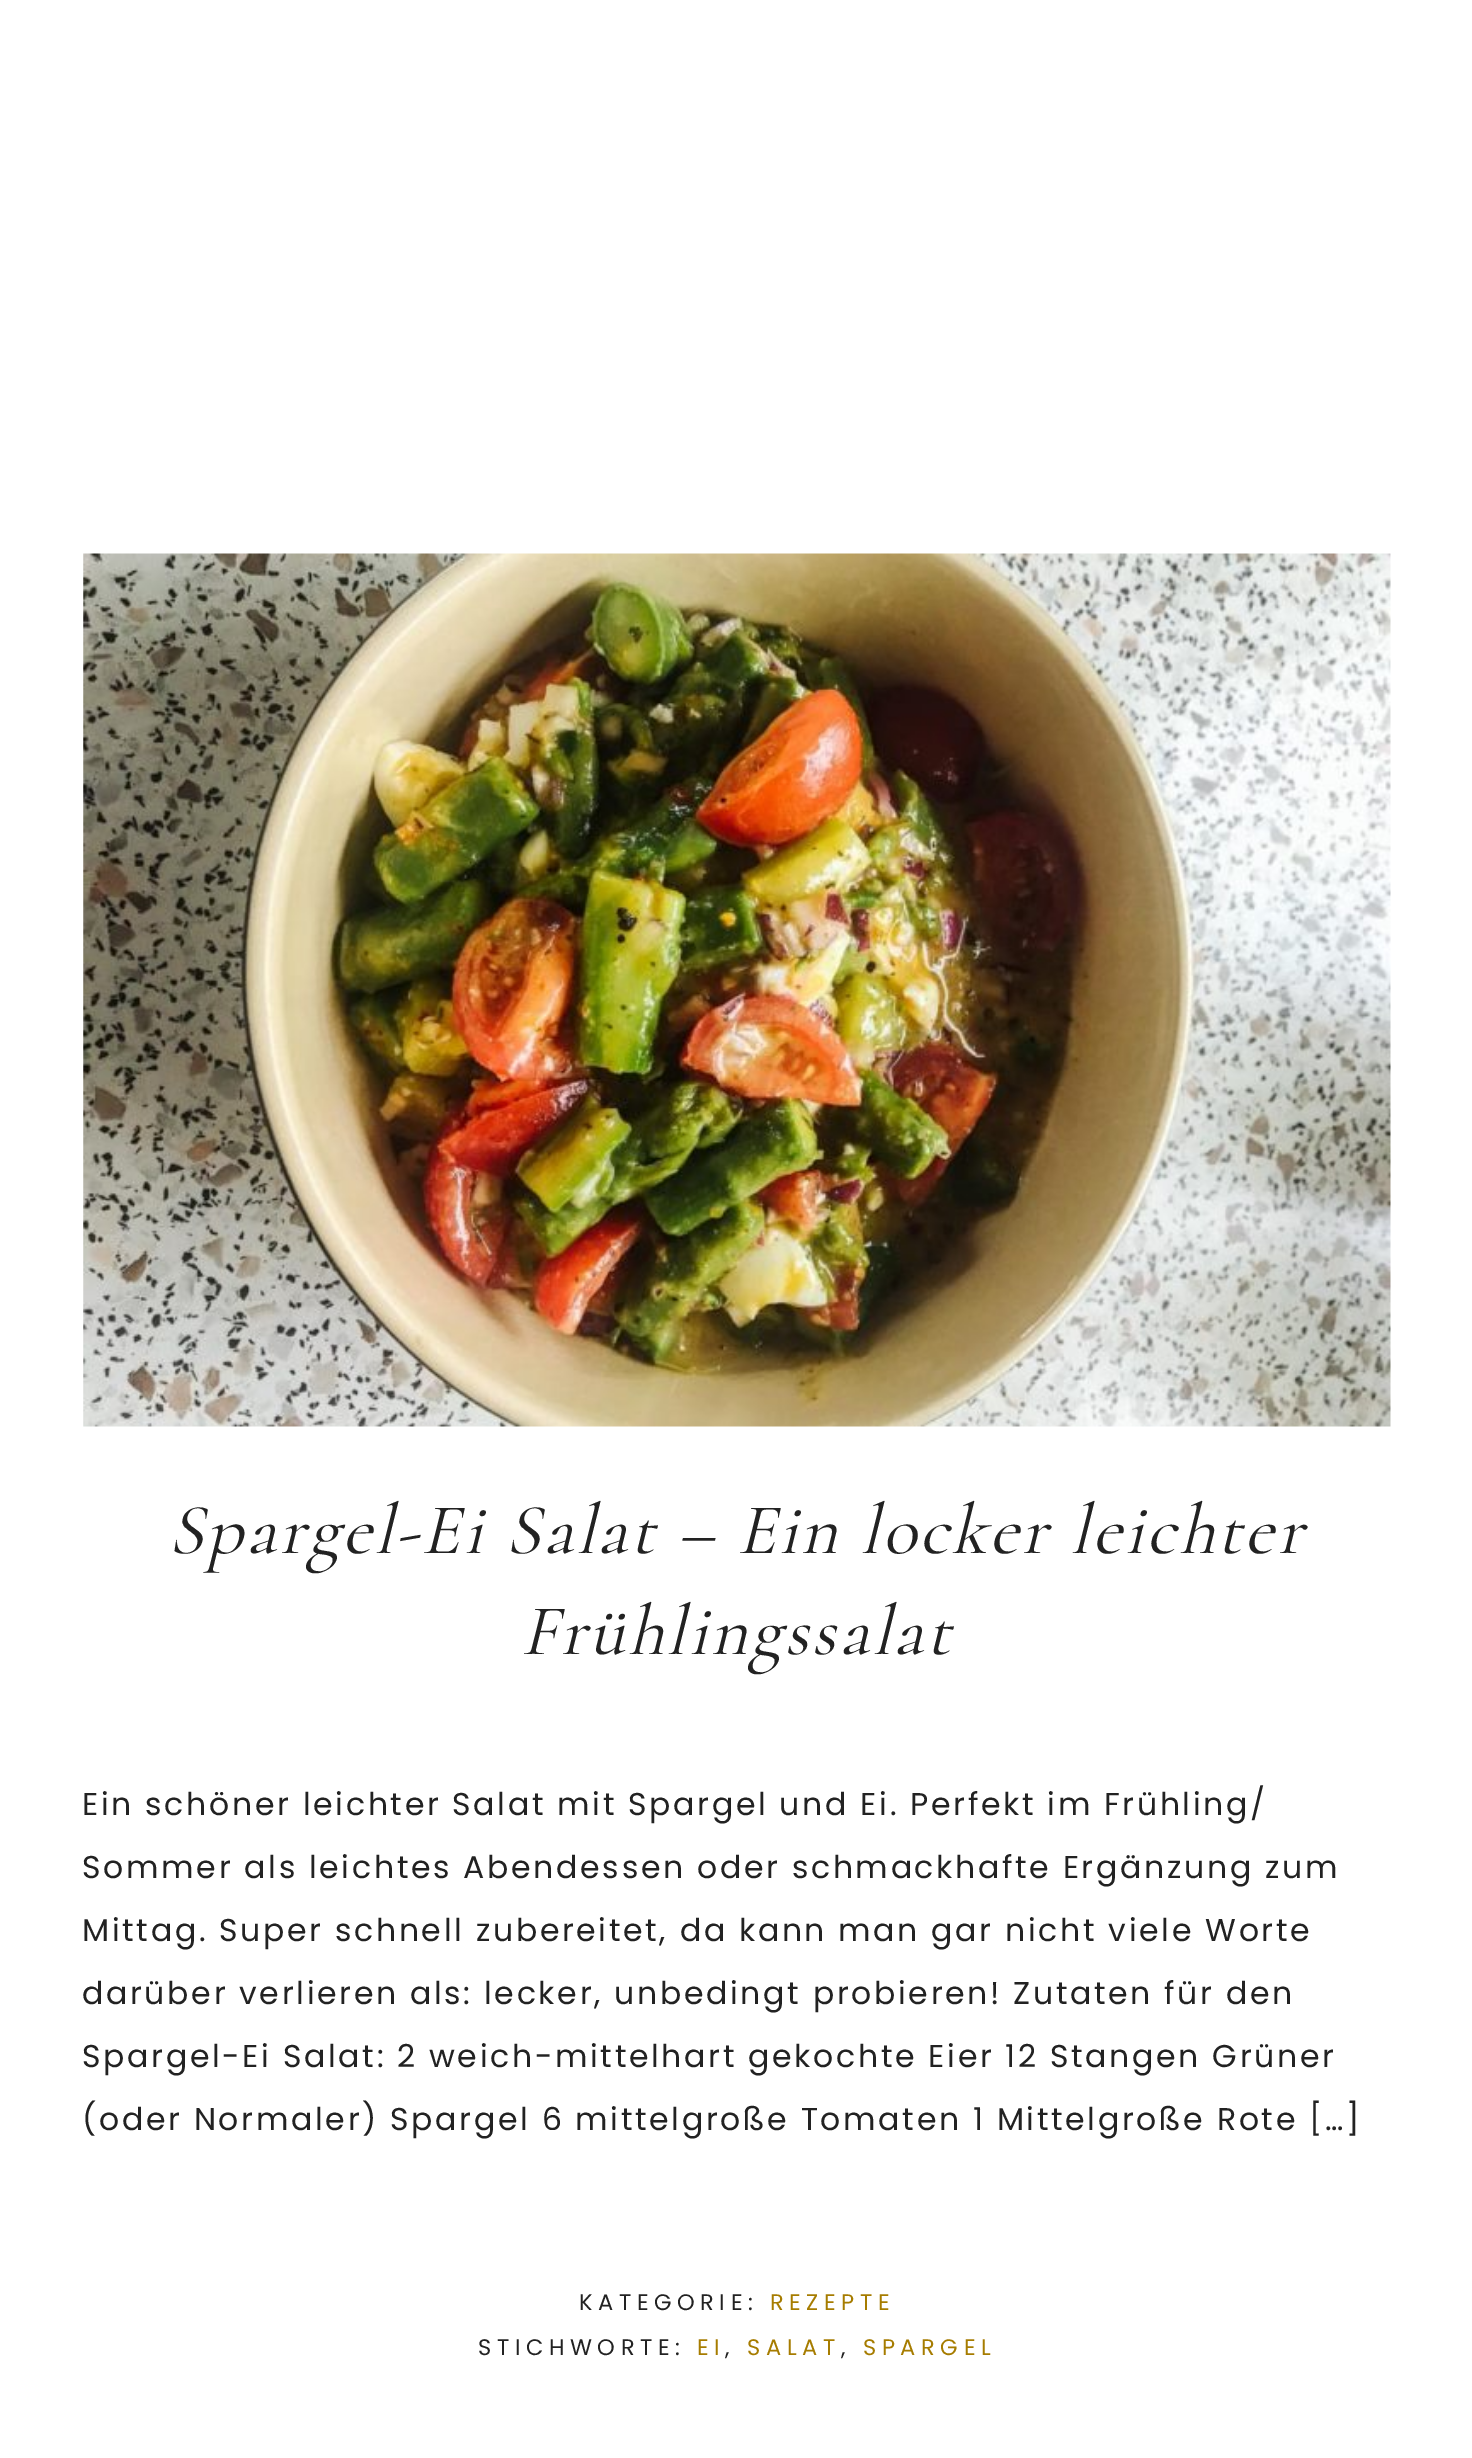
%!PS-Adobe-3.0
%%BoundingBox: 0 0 1472 2458
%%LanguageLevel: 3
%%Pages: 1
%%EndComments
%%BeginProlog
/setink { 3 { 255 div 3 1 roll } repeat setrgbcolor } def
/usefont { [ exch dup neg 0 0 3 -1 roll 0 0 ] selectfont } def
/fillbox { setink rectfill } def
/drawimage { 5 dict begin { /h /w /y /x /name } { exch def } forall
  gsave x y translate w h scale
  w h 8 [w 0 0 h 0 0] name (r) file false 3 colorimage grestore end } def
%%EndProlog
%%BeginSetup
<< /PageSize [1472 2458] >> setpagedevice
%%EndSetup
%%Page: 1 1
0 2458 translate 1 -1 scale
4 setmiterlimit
0 0 1472 2458 255 255 255 fillbox
(assets/img1.rgb) 83 553 1308 874 drawimage
/Cormorant-LightItalic 72 usefont
34 34 34 setink
168 1553 moveto 2.8 0 (Spargel-Ei Salat – Ein locker leichter) ashow
521 1654 moveto 2.8 0 (Frühlingssalat) ashow
/Poppins-Regular 31.5 usefont
82 1815 moveto 2.7 0 (Ein schöner leichter Salat mit Spargel und Ei. Perfekt im Frühling/) ashow
82 1878 moveto 2.7 0 (Sommer als leichtes Abendessen oder schmackhafte Ergänzung zum) ashow
82 1941 moveto 2.7 0 (Mittag. Super schnell zubereitet, da kann man gar nicht viele Worte) ashow
82 2004 moveto 2.7 0 (darüber verlieren als: lecker, unbedingt probieren! Zutaten für den) ashow
82 2067 moveto 2.7 0 (Spargel-Ei Salat: 2 weich-mittelhart gekochte Eier 12 Stangen Grüner) ashow
82 2130 moveto 2.7 0 (\(oder Normaler\) Spargel 6 mittelgroße Tomaten 1 Mittelgroße Rote […]) ashow
/Poppins-Regular 22.5 usefont
579 2310 moveto 5.6 0 (KATEGORIE:) ashow
166 124 0 setink
770 2310 moveto 5.6 0 (REZEPTE) ashow
34 34 34 setink
478 2355 moveto 5.6 0 (STICHWORTE:) ashow
166 124 0 setink
697 2355 moveto 5.6 0 (EI) ashow
34 34 34 setink
725 2355 moveto 5.6 0 (,) ashow
166 124 0 setink
747 2355 moveto 5.6 0 (SALAT) ashow
34 34 34 setink
841 2355 moveto 5.6 0 (,) ashow
166 124 0 setink
863 2355 moveto 5.6 0 (SPARGEL) ashow
showpage
%%EOF
